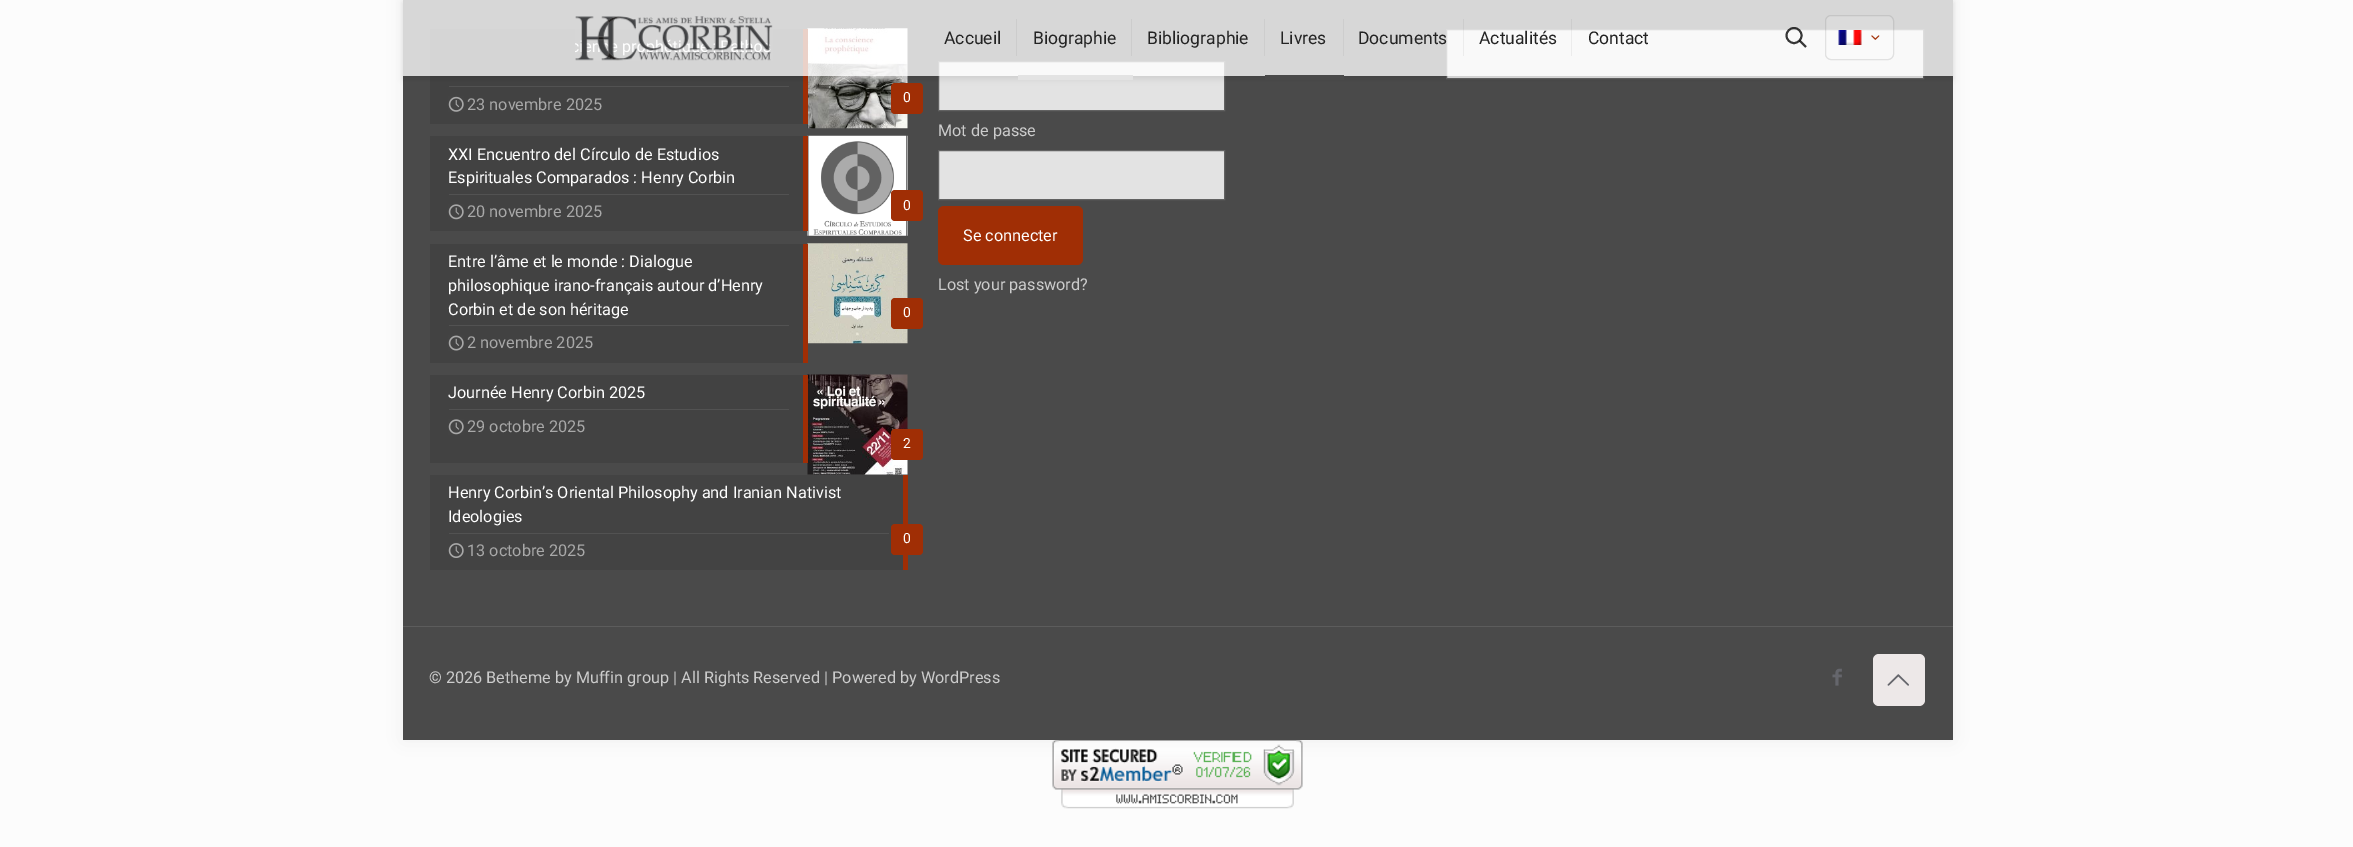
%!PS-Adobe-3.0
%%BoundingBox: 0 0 2353 847
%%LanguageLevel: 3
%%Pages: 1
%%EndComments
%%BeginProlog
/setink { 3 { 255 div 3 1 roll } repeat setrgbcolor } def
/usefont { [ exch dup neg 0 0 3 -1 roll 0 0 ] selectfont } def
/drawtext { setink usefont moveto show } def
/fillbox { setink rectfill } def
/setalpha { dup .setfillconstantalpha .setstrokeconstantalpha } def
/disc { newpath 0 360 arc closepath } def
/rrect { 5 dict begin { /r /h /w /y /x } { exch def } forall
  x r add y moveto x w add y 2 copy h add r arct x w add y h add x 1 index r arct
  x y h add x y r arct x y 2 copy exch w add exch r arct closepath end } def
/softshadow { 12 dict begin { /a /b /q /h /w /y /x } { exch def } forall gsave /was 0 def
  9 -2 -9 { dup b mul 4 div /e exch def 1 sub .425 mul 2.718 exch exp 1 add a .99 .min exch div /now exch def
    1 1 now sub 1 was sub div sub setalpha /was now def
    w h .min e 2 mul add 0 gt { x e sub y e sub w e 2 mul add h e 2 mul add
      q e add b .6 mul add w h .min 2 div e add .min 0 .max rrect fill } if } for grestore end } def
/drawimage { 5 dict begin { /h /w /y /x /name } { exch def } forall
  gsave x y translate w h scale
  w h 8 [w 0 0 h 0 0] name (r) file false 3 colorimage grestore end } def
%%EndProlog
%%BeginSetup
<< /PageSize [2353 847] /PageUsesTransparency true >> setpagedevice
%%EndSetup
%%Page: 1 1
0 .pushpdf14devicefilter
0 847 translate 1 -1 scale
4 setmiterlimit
0 0 2353 847 252 252 252 fillbox
(assets/img14.rgb) 1052 740 251 69 drawimage
0 0 0 setink
403 -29 1550 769 0 9.5 0.06 softshadow
403 0 1550 740 74 74 74 fillbox
227 227 227 setink
1446.5 29.5 moveto 1923.5 29.5 lineto 1923.5 78.5 lineto 1446.5 78.5 lineto closepath gsave fill grestore
98 98 98 setink
stroke
0.1 setalpha
430 29 373 95 0 0 0 fillbox
1 setalpha
449 86 340 1 82 82 82 fillbox
(assets/img5.rgb) 807 28 101 101 drawimage
803 29 5 95 160 46 5 fillbox
891 83 32 31 4 rrect fill
227 227 227 setink
938.5 61.5 moveto 1224.5 61.5 lineto 1224.5 110.5 lineto 938.5 110.5 lineto closepath gsave fill grestore
98 98 98 setink
stroke
gsave
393 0 moveto 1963 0 lineto 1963 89 lineto 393 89 lineto closepath 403 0 moveto 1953 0 lineto 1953 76 lineto 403 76 lineto closepath eoclip newpath
0 0 0 setink
403 3 1550 76 0 3 0.1 softshadow
grestore
0.78 setalpha
403 0 1550 76 255 255 255 fillbox
1 setalpha
(assets/img1.rgb) 575 16 198 45 drawimage
0.05 setalpha
1016 19 1 37 0 0 0 fillbox
1 setalpha
(Accueil) 944 44 /Roboto-Regular 17.5 35 35 35 drawtext
0.05 setalpha
1131 19 1 37 0 0 0 fillbox
1 setalpha
(Biographie) 1033 44 /Roboto-Regular 17.5 35 35 35 drawtext
1018 75 115 5 227 227 227 fillbox
1264 19 1 37 205 205 205 fillbox
(Bibliographie) 1147 44 /Roboto-Regular 17.5 35 35 35 drawtext
1343 19 1 37 205 205 205 fillbox
(Livres) 1280 44 /Roboto-Regular 17.5 35 35 35 drawtext
1265 75 79 5 74 74 74 fillbox
0.05 setalpha
1463 19 1 37 0 0 0 fillbox
1 setalpha
(Documents) 1358 44 /Roboto-Regular 17.5 35 35 35 drawtext
0.05 setalpha
1571 19 1 37 0 0 0 fillbox
1 setalpha
(Actualités) 1479 44 /Roboto-Regular 17.5 35 35 35 drawtext
(Contact) 1588 44 /Roboto-Regular 17.5 35 35 35 drawtext
0.78 setalpha
0 0 0 setink
1.9 setlinewidth
1794 35.5 7.5 disc stroke
0.8 setalpha
7 7 7 setink
1799.5 40.5 moveto 1806 47 lineto stroke
0.1 setalpha
255 255 255 setink
1825 15 69 45 6 rrect fill
0 0 0 setink
1 setlinewidth
1825.5 15.5 68 44 5.5 rrect stroke
1 setalpha
(assets/img2.rgb) 1838 30 24 15 drawimage
(assets/img3.rgb) 1871 35 9 5 drawimage
(assets/img4.rgb) 448 96 16 16 drawimage
(23 novembre 2025) 467 110 /Roboto-Regular 16.25 168 168 168 drawtext
(0) 903 102 /Roboto-Regular 14 255 255 255 drawtext
0.1 setalpha
430 136 373 95 0 0 0 fillbox
1 setalpha
449 194 340 1 82 82 82 fillbox
(XXI Encuentro del Círculo de Estudios) 448 160 /Roboto-Regular 16.25 255 255 255 drawtext
(Espirituales Comparados : Henry Corbin) 448 183 /Roboto-Regular 16.25 255 255 255 drawtext
(assets/img7.rgb) 807 135 101 101 drawimage
803 136 5 95 160 46 5 fillbox
(assets/img6.rgb) 448 204 16 16 drawimage
(20 novembre 2025) 467 217 /Roboto-Regular 16.25 168 168 168 drawtext
160 46 5 setink
891 190 32 31 4 rrect fill
(0) 903 210 /Roboto-Regular 14 255 255 255 drawtext
0.1 setalpha
430 244 373 119 0 0 0 fillbox
1 setalpha
449 325 340 1 82 82 82 fillbox
(Entre l’âme et le monde : Dialogue) 448 267 /Roboto-Regular 16.25 255 255 255 drawtext
(philosophique irano-français autour d’Henry) 448 291 /Roboto-Regular 16.25 255 255 255 drawtext
(Corbin et de son héritage) 448 315 /Roboto-Regular 16.25 255 255 255 drawtext
(assets/img9.rgb) 807 243 101 101 drawimage
803 244 5 119 160 46 5 fillbox
(assets/img8.rgb) 448 335 16 16 drawimage
(2 novembre 2025) 467 348 /Roboto-Regular 16.25 168 168 168 drawtext
160 46 5 setink
891 298 32 31 4 rrect fill
(0) 903 317 /Roboto-Regular 14 255 255 255 drawtext
0.1 setalpha
430 375 373 88 0 0 0 fillbox
1 setalpha
449 409 340 1 82 82 82 fillbox
(Journée Henry Corbin 2025) 448 398 /Roboto-Regular 16.25 255 255 255 drawtext
(assets/img10.rgb) 807 374 101 101 drawimage
803 375 5 88 160 46 5 fillbox
(assets/img6.rgb) 448 419 16 16 drawimage
(29 octobre 2025) 467 432 /Roboto-Regular 16.25 168 168 168 drawtext
160 46 5 setink
891 429 32 31 4 rrect fill
(2) 903 448 /Roboto-Regular 14 255 255 255 drawtext
430 475 473 95 67 67 67 fillbox
449 533 440 1 82 82 82 fillbox
(Henry Corbin’s Oriental Philosophy and Iranian Nativist) 448 498 /Roboto-Regular 16.25 255 255 255 drawtext
(Ideologies) 448 522 /Roboto-Regular 16.25 255 255 255 drawtext
903 475 5 95 160 46 5 fillbox
(assets/img11.rgb) 448 543 16 15 drawimage
(13 octobre 2025) 467 556 /Roboto-Regular 16.25 168 168 168 drawtext
160 46 5 setink
891 524 32 31 4 rrect fill
(0) 903 543 /Roboto-Regular 14 255 255 255 drawtext
(Mot de passe) 938 136 /Roboto-Regular 16.25 204 204 204 drawtext
227 227 227 setink
938.5 150.5 moveto 1224.5 150.5 lineto 1224.5 199.5 lineto 938.5 199.5 lineto closepath gsave fill grestore
98 98 98 setink
stroke
160 46 5 setink
938 206 145 59 6 rrect fill
(Se connecter) 963 241 /Roboto-Regular 16.25 255 255 255 drawtext
(Lost your password?) 938 290 /Roboto-Regular 16.25 204 204 204 drawtext
403 626 1550 1 92 92 92 fillbox
(© 2026 Betheme by Muffin group | All Rights Reserved | Powered by WordPress) 429 683 /Roboto-Regular 16.25 204 204 204 drawtext
(assets/img12.rgb) 1832 668 10 18 drawimage
237 232 232 setink
1873 654 52 52 6 rrect fill
(assets/img13.rgb) 1887 674 22 12 drawimage
.poppdf14devicefilter showpage
%%EOF
